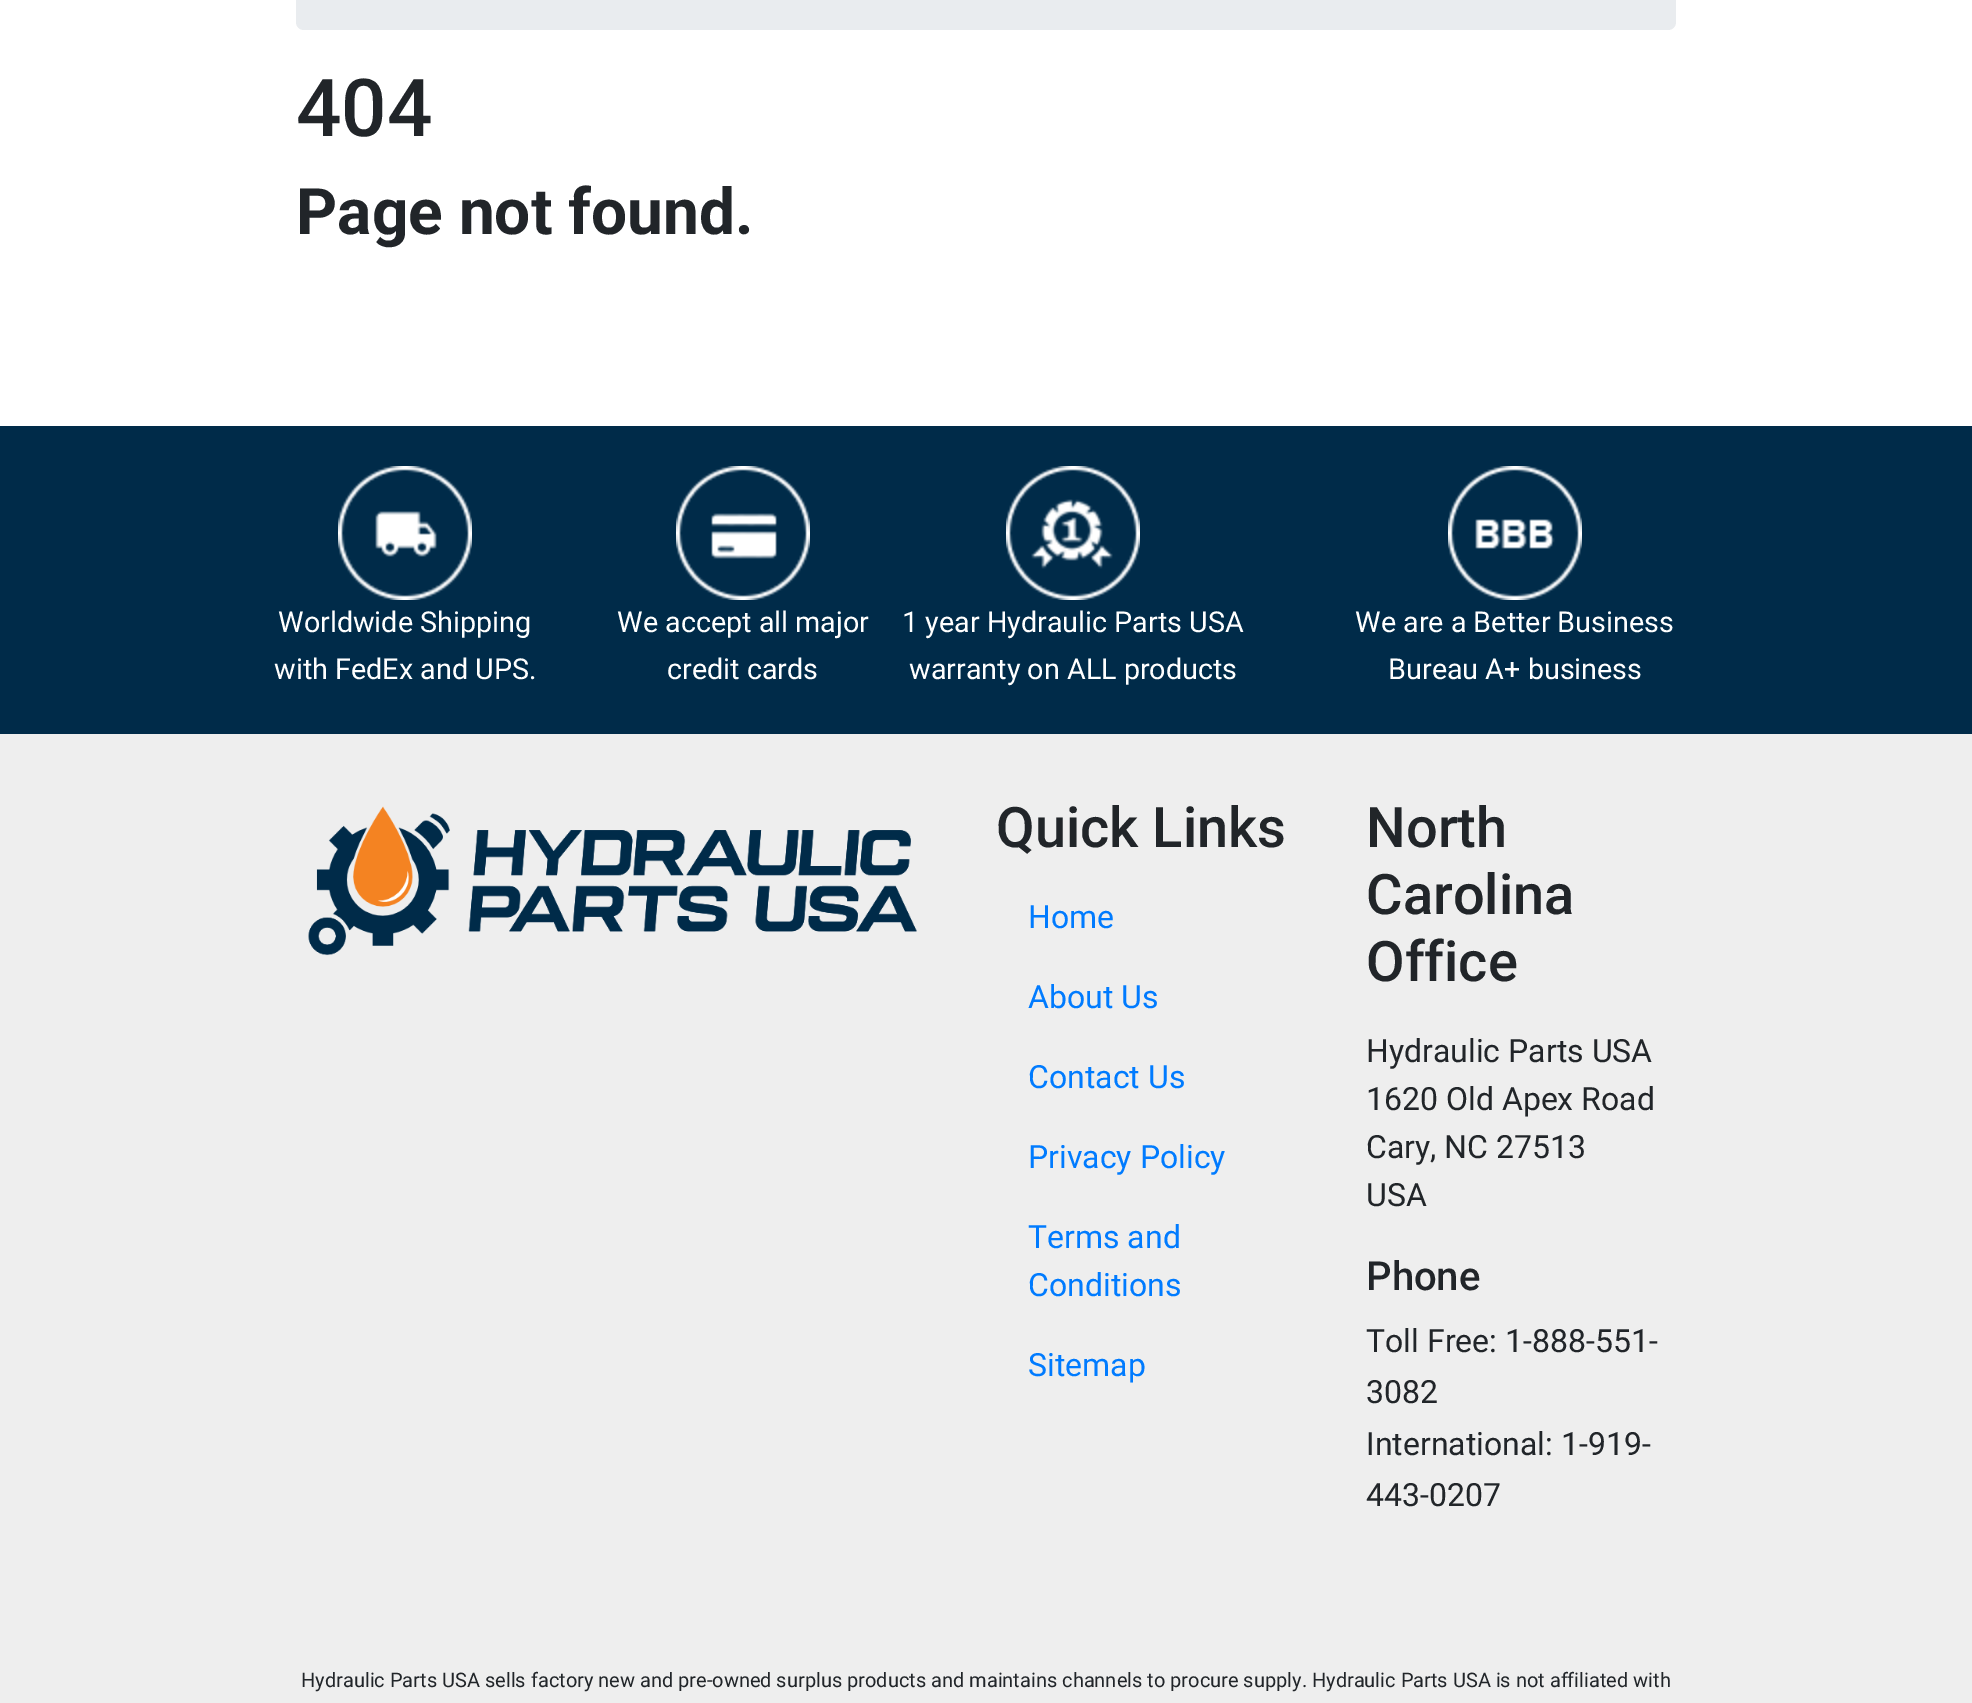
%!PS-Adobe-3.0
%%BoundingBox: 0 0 1972 1703
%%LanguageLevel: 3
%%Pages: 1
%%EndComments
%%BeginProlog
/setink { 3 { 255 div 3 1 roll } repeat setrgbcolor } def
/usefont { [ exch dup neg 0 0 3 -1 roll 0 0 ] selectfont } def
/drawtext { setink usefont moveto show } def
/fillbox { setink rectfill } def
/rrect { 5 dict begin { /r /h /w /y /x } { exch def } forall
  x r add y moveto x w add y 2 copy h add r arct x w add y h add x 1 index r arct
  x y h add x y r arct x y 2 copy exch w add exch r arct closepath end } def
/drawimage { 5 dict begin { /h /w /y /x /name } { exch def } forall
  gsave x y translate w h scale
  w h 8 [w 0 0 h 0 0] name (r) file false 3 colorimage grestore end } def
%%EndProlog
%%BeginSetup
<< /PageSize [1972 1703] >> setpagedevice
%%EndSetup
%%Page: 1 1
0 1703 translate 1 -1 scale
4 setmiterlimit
0 0 1972 1703 255 255 255 fillbox
233 236 239 setink
296 -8 1380 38 8 rrect fill
(404) 296 136 /Roboto-Medium 80 33 37 41 drawtext
(Page not found.) 296 234 /Roboto-Bold 64 33 37 41 drawtext
0 426 1972 308 0 43 73 fillbox
(assets/img1.rgb) 338 466 134 134 drawimage
(Worldwide Shipping) 278 632 /Roboto-Regular 28.75 255 255 255 drawtext
(with FedEx and UPS.) 274 679 /Roboto-Regular 28.75 255 255 255 drawtext
(assets/img2.rgb) 676 466 134 134 drawimage
(We accept all major) 617 632 /Roboto-Regular 28.75 255 255 255 drawtext
(credit cards) 667 679 /Roboto-Regular 28.75 255 255 255 drawtext
(assets/img3.rgb) 1006 466 134 134 drawimage
(1 year Hydraulic Parts USA) 902 632 /Roboto-Regular 28.75 255 255 255 drawtext
(warranty on ALL products) 909 679 /Roboto-Regular 28.75 255 255 255 drawtext
(assets/img4.rgb) 1448 466 134 134 drawimage
(We are a Better Business) 1355 632 /Roboto-Regular 28.75 255 255 255 drawtext
(Bureau A+ business) 1388 679 /Roboto-Regular 28.75 255 255 255 drawtext
0 734 1972 969 238 238 238 fillbox
(assets/img5.rgb) 308 806 609 150 drawimage
(Quick Links) 996 847 /Roboto-Medium 56 33 37 41 drawtext
(Home) 1028 928 /Roboto-Regular 32 0 123 255 drawtext
(About Us) 1028 1008 /Roboto-Regular 32 0 123 255 drawtext
(Contact Us) 1028 1088 /Roboto-Regular 32 0 123 255 drawtext
(Privacy Policy) 1028 1168 /Roboto-Regular 32 0 123 255 drawtext
(Terms and) 1028 1248 /Roboto-Regular 32 0 123 255 drawtext
(Conditions) 1028 1296 /Roboto-Regular 32 0 123 255 drawtext
(Sitemap) 1028 1376 /Roboto-Regular 32 0 123 255 drawtext
(North) 1366 847 /Roboto-Medium 56 33 37 41 drawtext
(Carolina) 1366 914 /Roboto-Medium 56 33 37 41 drawtext
(Office) 1366 981 /Roboto-Medium 56 33 37 41 drawtext
(Hydraulic Parts USA) 1366 1062 /Roboto-Regular 32 33 37 41 drawtext
(1620 Old Apex Road) 1366 1110 /Roboto-Regular 32 33 37 41 drawtext
(Cary, NC 27513) 1366 1158 /Roboto-Regular 32 33 37 41 drawtext
(USA) 1366 1206 /Roboto-Regular 32 33 37 41 drawtext
(Phone) 1366 1290 /Roboto-Medium 40 33 37 41 drawtext
(Toll Free: 1-888-551-) 1366 1352 /Roboto-Regular 32 33 37 41 drawtext
(3082) 1366 1403 /Roboto-Regular 32 33 37 41 drawtext
(International: 1-919-) 1366 1455 /Roboto-Regular 32 33 37 41 drawtext
(443-0207) 1366 1506 /Roboto-Regular 32 33 37 41 drawtext
(Hydraulic Parts USA sells factory new and pre-owned surplus products and maintains channels to procure supply. Hydraulic Parts USA is not affiliated with) 301 1687 /Roboto-Regular 20 33 37 41 drawtext
showpage
%%EOF
